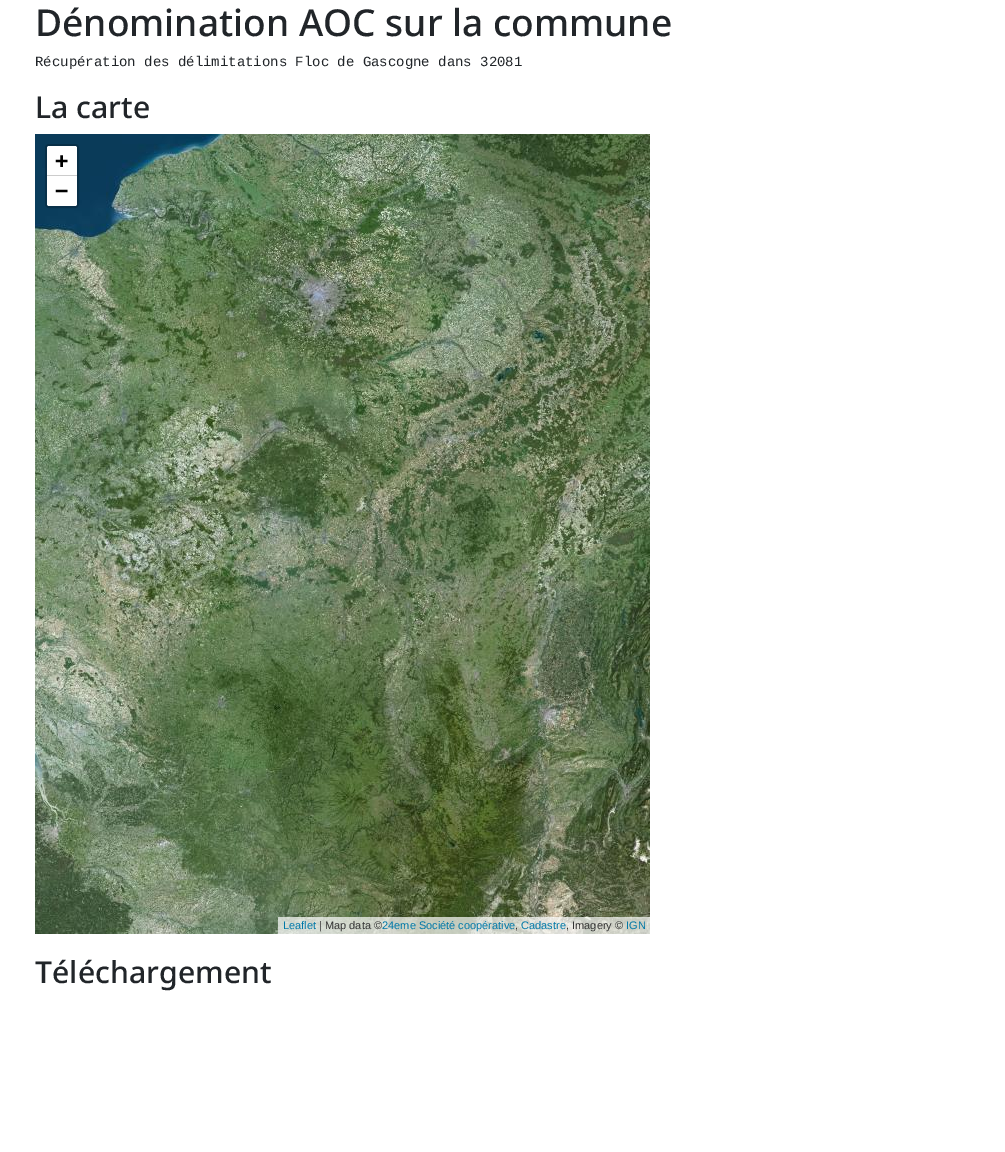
%!PS-Adobe-3.0
%%BoundingBox: 0 0 1005 1152
%%LanguageLevel: 3
%%Pages: 1
%%EndComments
%%BeginProlog
/setink { 3 { 255 div 3 1 roll } repeat setrgbcolor } def
/usefont { [ exch dup neg 0 0 3 -1 roll 0 0 ] selectfont } def
/drawtext { setink usefont moveto show } def
/fillbox { setink rectfill } def
/setalpha { dup .setfillconstantalpha .setstrokeconstantalpha } def
/rrect { 5 dict begin { /r /h /w /y /x } { exch def } forall
  x r add y moveto x w add y 2 copy h add r arct x w add y h add x 1 index r arct
  x y h add x y r arct x y 2 copy exch w add exch r arct closepath end } def
/drawimage { 5 dict begin { /h /w /y /x /name } { exch def } forall
  gsave x y translate w h scale
  w h 8 [w 0 0 h 0 0] name (r) file false 3 colorimage grestore end } def
%%EndProlog
%%BeginSetup
<< /PageSize [1005 1152] /PageUsesTransparency true >> setpagedevice
%%EndSetup
%%Page: 1 1
0 .pushpdf14devicefilter
0 1152 translate 1 -1 scale
4 setmiterlimit
0 0 1005 1152 255 255 255 fillbox
(Dénomination AOC sur la commune) 35 36 /NotoSans-Medium 37.1 33 37 41 drawtext
(Récupération des délimitations Floc de Gascogne dans 32081) 35 66 /LiberationMono-Regular 14 33 37 41 drawtext
(La carte) 35 118 /NotoSans-Medium 30.25 33 37 41 drawtext
(assets/img1.rgb) 35 134 71 154 drawimage
(assets/img2.rgb) 106 134 256 154 drawimage
(assets/img3.rgb) 362 134 256 154 drawimage
(assets/img4.rgb) 618 134 32 154 drawimage
(assets/img5.rgb) 35 288 71 256 drawimage
(assets/img6.rgb) 106 288 256 256 drawimage
(assets/img7.rgb) 362 288 256 256 drawimage
(assets/img8.rgb) 618 288 32 256 drawimage
(assets/img9.rgb) 35 544 71 256 drawimage
(assets/img10.rgb) 106 544 256 256 drawimage
(assets/img11.rgb) 362 544 256 256 drawimage
(assets/img12.rgb) 618 544 32 256 drawimage
(assets/img13.rgb) 35 800 71 134 drawimage
(assets/img14.rgb) 106 800 256 134 drawimage
(assets/img15.rgb) 362 800 256 134 drawimage
(assets/img16.rgb) 618 800 32 134 drawimage
0.2 setalpha
0 0 0 setink
2 setlinewidth
46 145 32 62 3 rrect stroke
1 setalpha
255 255 255 setink
49 146 moveto 75 146 lineto 76 146 77 147 77 148 curveto 77 176 lineto 47 176 lineto 47 148 lineto 47 147 48 146 49 146 curveto closepath fill
47 175 30 1 204 204 204 fillbox
(+) 55 168 /DejaVuSansMono-Bold 22 0 0 0 drawtext
255 255 255 setink
47 176 moveto 77 176 lineto 77 204 lineto 77 205 76 206 75 206 curveto 49 206 lineto 48 206 47 205 47 204 curveto closepath fill
(−) 55 198 /DejaVuSansMono-Bold 22 0 0 0 drawtext
0.7 setalpha
278 917 372 17 255 255 255 fillbox
1 setalpha
(Leaflet) 283 929 /LiberationSans-Regular 11 0 120 168 drawtext
(| Map data ©) 319 929 /LiberationSans-Regular 11 51 51 51 drawtext
(24eme Société coopérative) 382 929 /LiberationSans-Regular 11 0 120 168 drawtext
(,) 515 929 /LiberationSans-Regular 11 51 51 51 drawtext
(Cadastre) 521 929 /LiberationSans-Regular 11 0 120 168 drawtext
(, Imagery ©) 566 929 /LiberationSans-Regular 11 51 51 51 drawtext
(IGN) 626 929 /LiberationSans-Regular 11 0 120 168 drawtext
(Téléchargement) 35 983 /NotoSans-Medium 30.25 33 37 41 drawtext
.poppdf14devicefilter showpage
%%EOF
